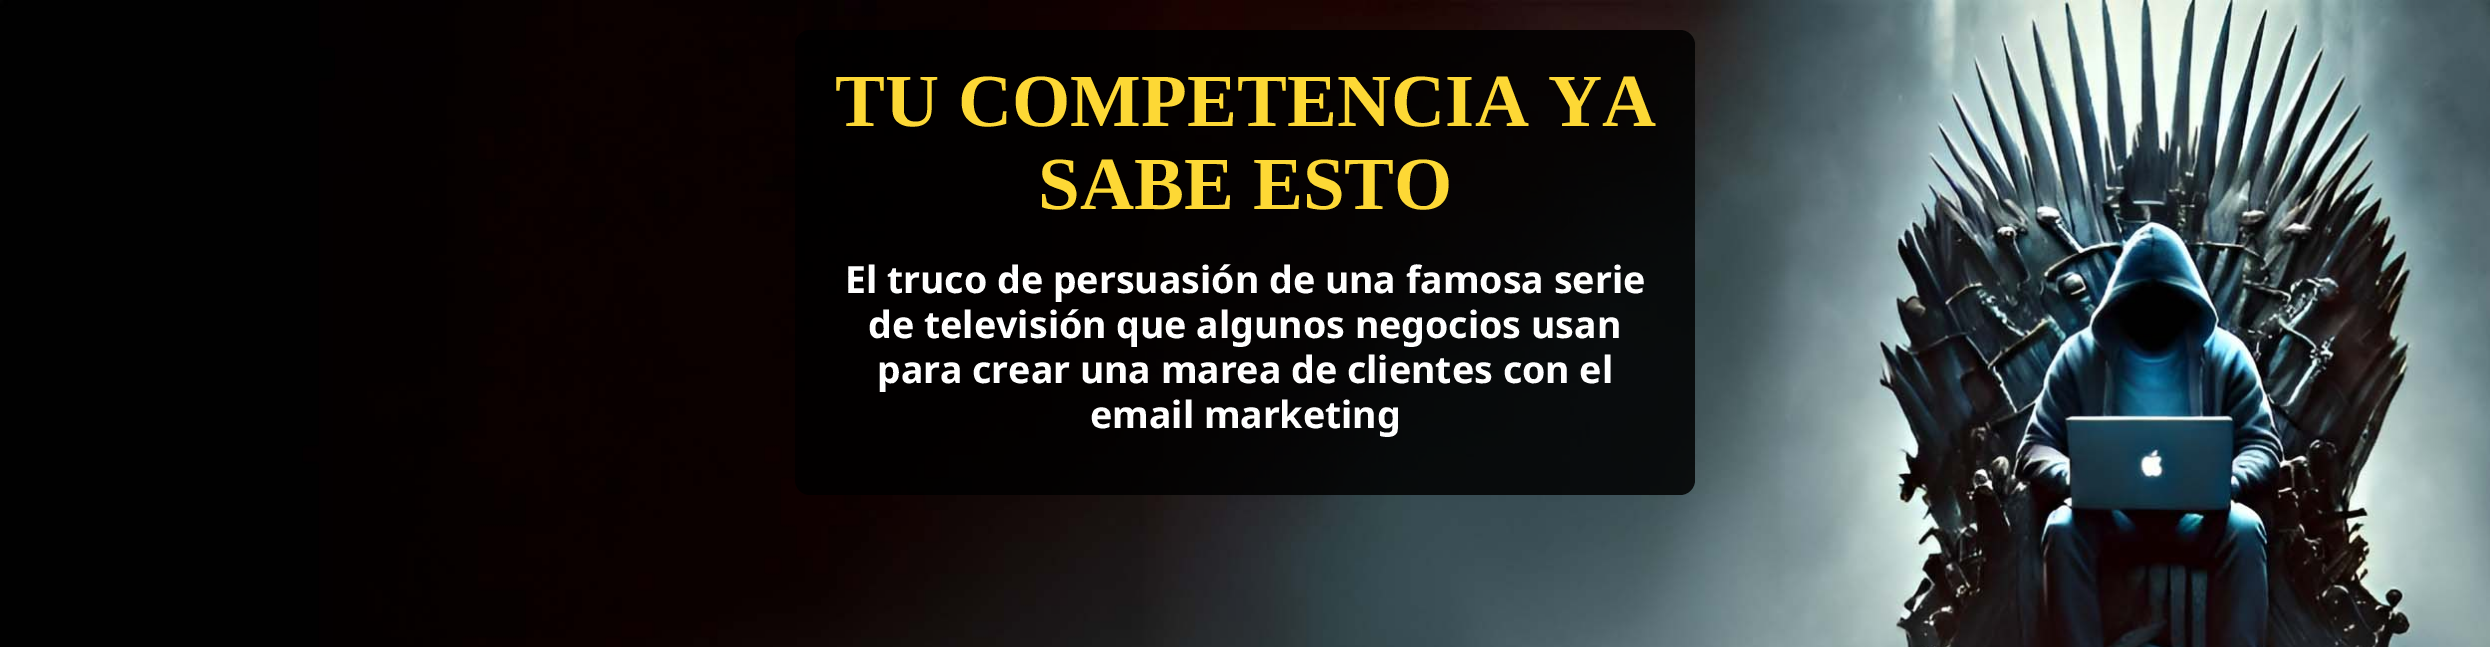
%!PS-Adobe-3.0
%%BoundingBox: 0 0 2490 647
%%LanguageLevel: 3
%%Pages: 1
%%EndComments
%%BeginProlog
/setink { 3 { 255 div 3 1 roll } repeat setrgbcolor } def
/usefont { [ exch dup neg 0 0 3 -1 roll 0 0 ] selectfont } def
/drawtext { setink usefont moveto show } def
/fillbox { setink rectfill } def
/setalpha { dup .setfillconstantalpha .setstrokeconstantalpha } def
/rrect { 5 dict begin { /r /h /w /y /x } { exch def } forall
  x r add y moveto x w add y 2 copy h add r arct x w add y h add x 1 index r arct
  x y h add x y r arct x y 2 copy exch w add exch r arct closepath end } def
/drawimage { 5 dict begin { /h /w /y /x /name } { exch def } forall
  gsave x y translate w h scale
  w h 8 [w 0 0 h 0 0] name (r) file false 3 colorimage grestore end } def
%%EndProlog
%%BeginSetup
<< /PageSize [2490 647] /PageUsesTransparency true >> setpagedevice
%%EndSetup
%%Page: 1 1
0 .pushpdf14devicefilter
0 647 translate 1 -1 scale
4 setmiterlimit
0 0 2490 647 255 255 255 fillbox
(assets/img1.rgb) 0 0 2490 647 drawimage
0.85 setalpha
0 0 0 setink
795 30 900 465 15 rrect fill
1 setalpha
(TU COMPETENCIA YA) 835 126 /LiberationSerif-Bold 75 253 216 53 drawtext
(SABE ESTO) 1038 209 /LiberationSerif-Bold 75 253 216 53 drawtext
(El truco de persuasión de una famosa serie) 845 293 /NotoSans-Bold 37.5 255 255 255 drawtext
(de televisión que algunos negocios usan) 868 338 /NotoSans-Bold 37.5 255 255 255 drawtext
(para crear una marea de clientes con el) 877 383 /NotoSans-Bold 37.5 255 255 255 drawtext
(email marketing) 1090 428 /NotoSans-Bold 37.5 255 255 255 drawtext
.poppdf14devicefilter showpage
%%EOF
